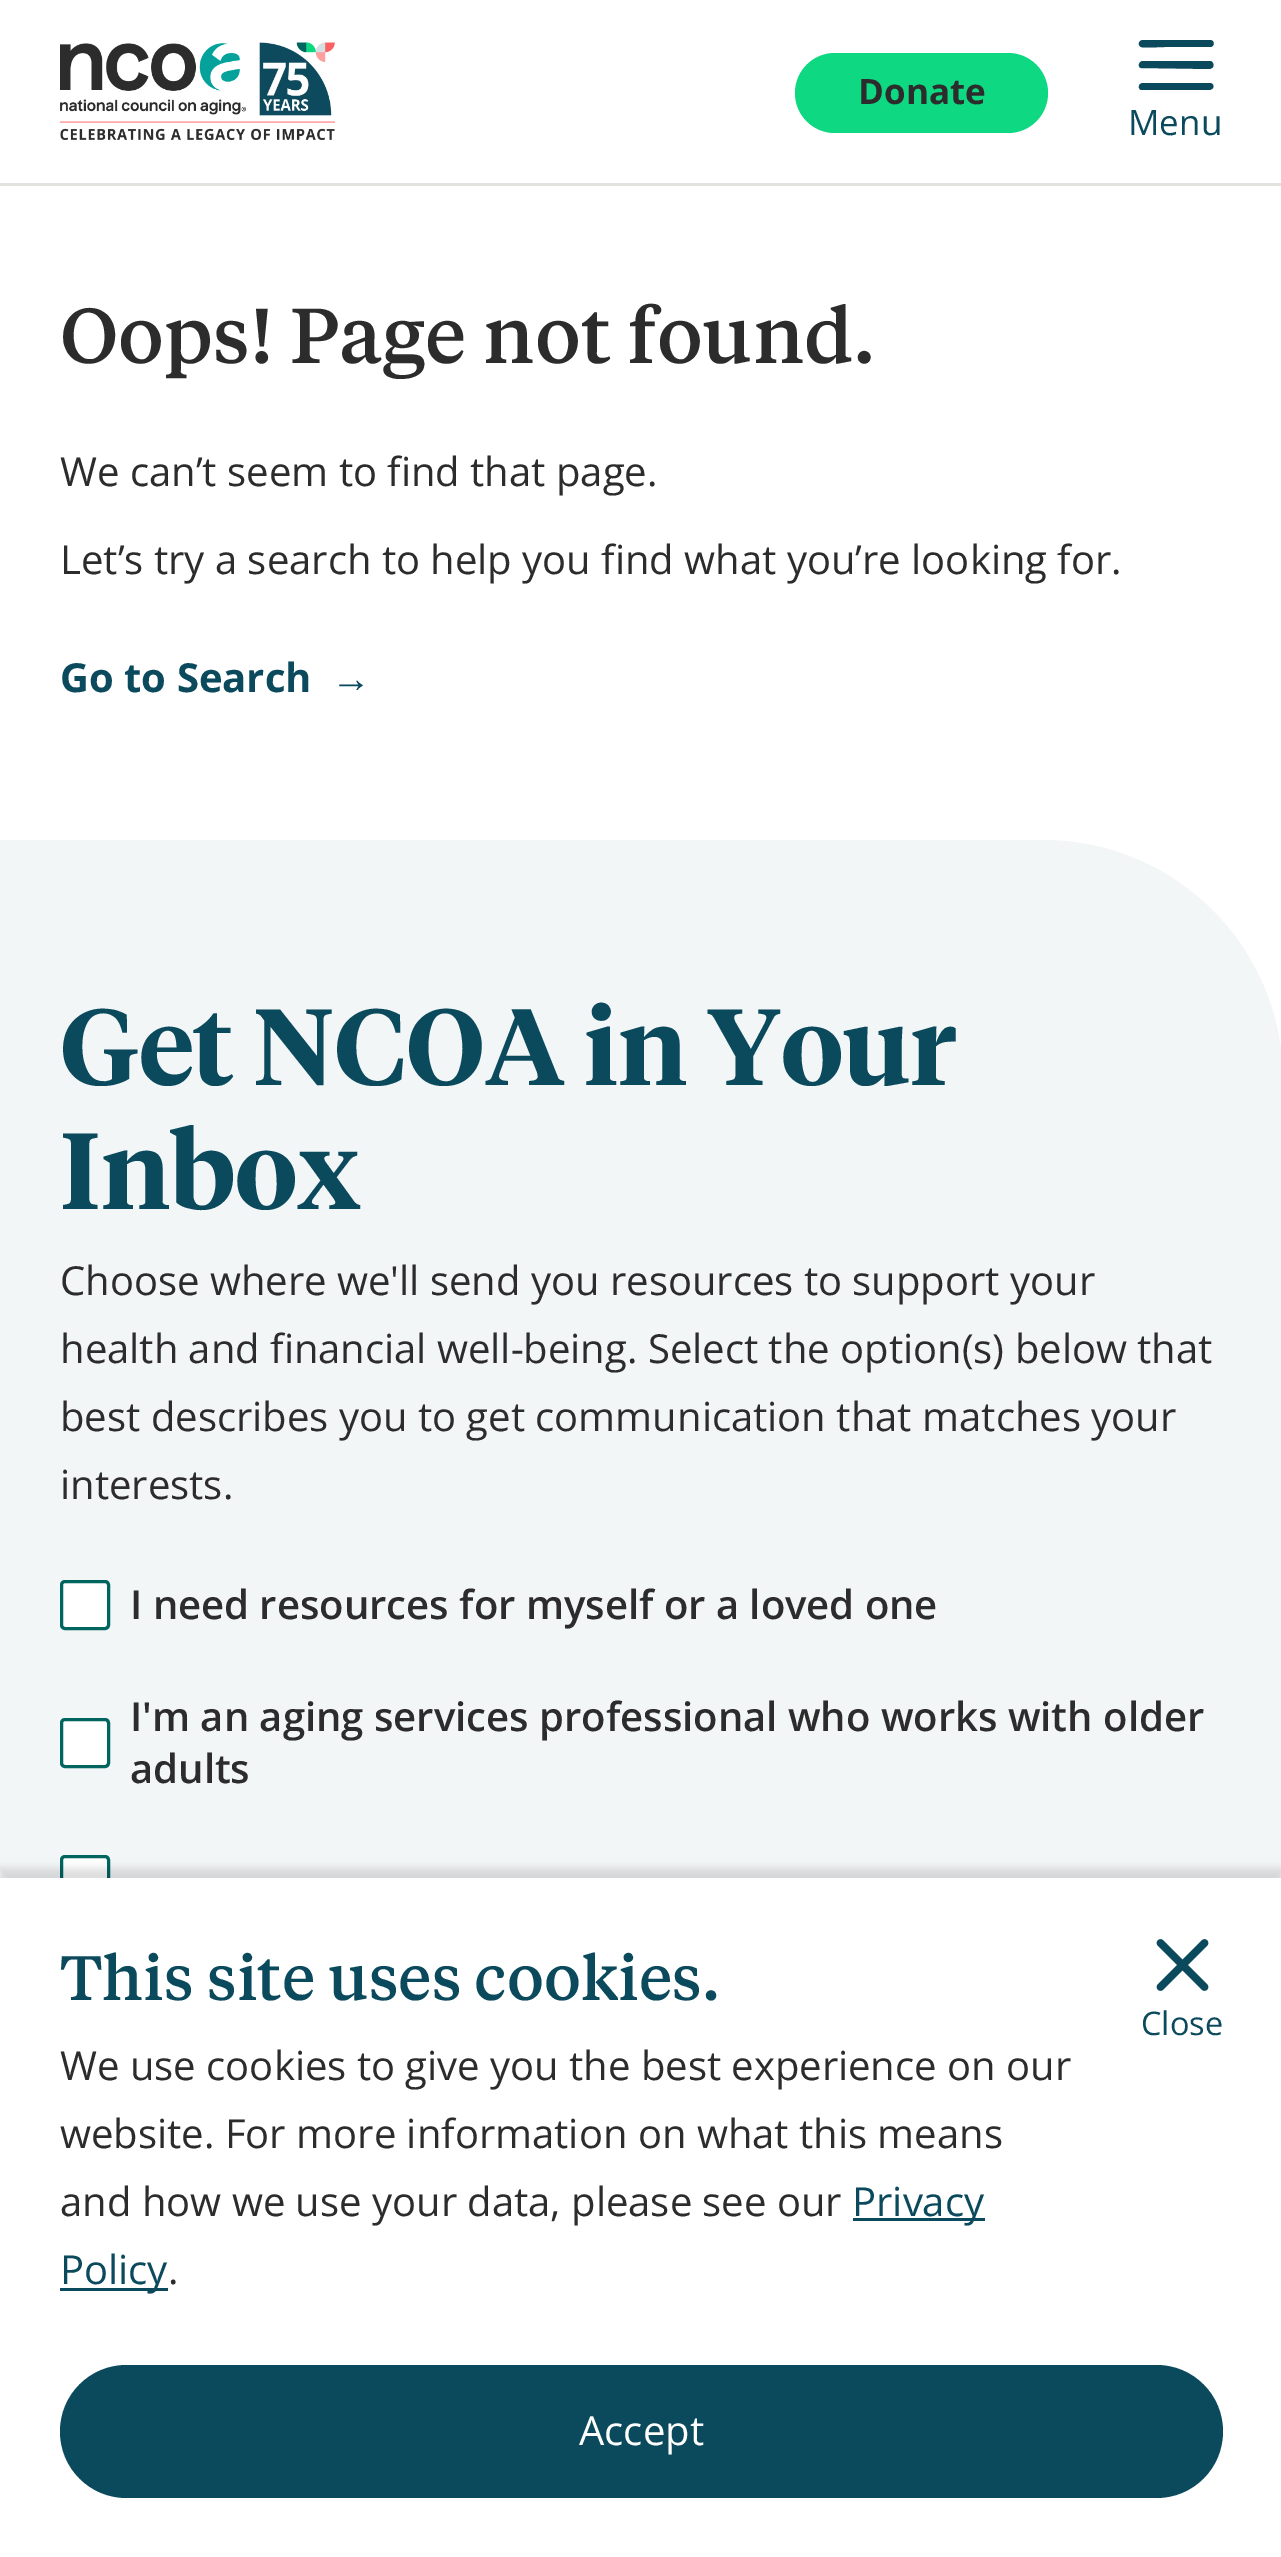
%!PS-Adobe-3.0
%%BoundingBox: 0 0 1281 2557
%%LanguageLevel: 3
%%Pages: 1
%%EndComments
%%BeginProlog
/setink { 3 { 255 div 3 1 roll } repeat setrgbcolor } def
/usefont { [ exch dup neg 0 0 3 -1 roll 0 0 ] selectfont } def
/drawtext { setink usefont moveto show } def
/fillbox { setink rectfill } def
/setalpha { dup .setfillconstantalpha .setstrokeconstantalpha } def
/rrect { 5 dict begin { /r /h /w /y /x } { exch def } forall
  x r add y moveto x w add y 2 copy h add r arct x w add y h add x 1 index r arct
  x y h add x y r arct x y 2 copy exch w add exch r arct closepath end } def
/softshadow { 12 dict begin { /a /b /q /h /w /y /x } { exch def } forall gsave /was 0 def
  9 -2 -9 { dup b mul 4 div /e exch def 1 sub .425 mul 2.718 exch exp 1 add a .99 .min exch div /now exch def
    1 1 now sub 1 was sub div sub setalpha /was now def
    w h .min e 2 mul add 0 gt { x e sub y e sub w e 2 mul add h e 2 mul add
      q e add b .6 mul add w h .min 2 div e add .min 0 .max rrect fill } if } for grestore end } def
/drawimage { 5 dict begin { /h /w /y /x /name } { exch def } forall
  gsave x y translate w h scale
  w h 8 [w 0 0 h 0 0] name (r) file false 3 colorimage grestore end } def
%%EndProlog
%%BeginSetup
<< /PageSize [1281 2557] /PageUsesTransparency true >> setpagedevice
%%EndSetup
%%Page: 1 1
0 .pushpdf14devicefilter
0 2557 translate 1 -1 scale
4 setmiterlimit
0 0 1281 2557 255 255 255 fillbox
0 183 1281 3 226 226 222 fillbox
(assets/img1.rgb) 60 42 275 98 drawimage
14 216 130 setink
795 53 253 80 40 rrect fill
(Donate) 858 104 /OpenSans-Bold 35 44 44 44 drawtext
11 74 93 setink
1143 40 moveto 1139 40 1137 45 1141 47 curveto 1143 48 1161 47 1165 47 curveto 1210 47 lineto 1215 47 1215 40 1210 40 curveto closepath 1143 61 moveto 1139 61 1137 67 1141 68 curveto 1210 69 lineto 1212 68 lineto 1215 66 1213 61 1210 61 curveto closepath 1143 83 moveto 1139 83 1137 88 1141 90 curveto 1210 90 lineto 1212 89 lineto 1215 87 1213 83 1210 83 curveto closepath fill
(Menu) 1128 135 /OpenSans-Regular 35 11 74 93 drawtext
(Oops! Page not found.) 60 363 /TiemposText-Medium 77.5 44 44 44 drawtext
(We can’t seem to find that page.) 60 486 /OpenSans-Regular 40 44 44 44 drawtext
(Let’s try a search to help you find what you’re looking for.) 60 574 /OpenSans-Regular 40 44 44 44 drawtext
(Go to Search) 60 692 /OpenSans-Bold 40 11 74 93 drawtext
(→) 331 692 /LiberationSerif-Bold 40 11 74 93 drawtext
243 246 247 setink
0 840 moveto 1043 840 lineto 1175.5 840 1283 947.5 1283 1080 curveto 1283 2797 lineto 0 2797 lineto closepath fill
(Get NCOA in Your) 60 1085 /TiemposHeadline-SemiBold 107.5 11 74 93 drawtext
(Inbox) 60 1209 /TiemposHeadline-SemiBold 107.5 11 74 93 drawtext
(Choose where we'll send you resources to support your) 60 1295 /OpenSans-Regular 40 44 44 44 drawtext
(health and financial well-being. Select the option\(s\) below that) 60 1363 /OpenSans-Regular 40 44 44 44 drawtext
(best describes you to get communication that matches your) 60 1431 /OpenSans-Regular 40 44 44 44 drawtext
(interests.) 60 1499 /OpenSans-Regular 40 44 44 44 drawtext
255 255 255 setink
61.5 1581.5 47 47 3.5 rrect gsave fill grestore
0 100 95 setink
3 setlinewidth
stroke
(I need resources for myself or a loved one) 130 1619 /OpenSans-SemiBold 40 44 44 44 drawtext
255 255 255 setink
61.5 1719.5 47 47 3.5 rrect gsave fill grestore
0 100 95 setink
stroke
(I'm an aging services professional who works with older) 130 1731 /OpenSans-SemiBold 40 44 44 44 drawtext
(adults) 130 1783 /OpenSans-SemiBold 40 44 44 44 drawtext
255 255 255 setink
61.5 1856.5 47 47 3.5 rrect gsave fill grestore
0 100 95 setink
stroke
0 0 0 setink
0 1868 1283 680 0 4 0.12 softshadow
0 1878 1281 679 255 255 255 fillbox
(This site uses cookies.) 60 2000 /TiemposText-Medium 62.5 11 74 93 drawtext
(We use cookies to give you the best experience on our) 60 2080 /OpenSans-Regular 40 44 44 44 drawtext
(website. For more information on what this means) 60 2148 /OpenSans-Regular 40 44 44 44 drawtext
(and how we use your data, please see our) 60 2216 /OpenSans-Regular 40 44 44 44 drawtext
853 2218 132 3 11 74 93 fillbox
(Privacy) 852 2216 /OpenSans-Regular 40 11 74 93 drawtext
60 2288 108 3 11 74 93 fillbox
(Policy) 60 2284 /OpenSans-Regular 40 11 74 93 drawtext
(.) 168 2284 /OpenSans-Regular 40 44 44 44 drawtext
(assets/img2.rgb) 1156 1939 53 52 drawimage
(Close) 1141 2035 /OpenSans-Regular 32.5 11 74 93 drawtext
60 2365 1163 133 66.5 rrect fill
(Accept) 579 2445 /OpenSans-Regular 40 255 255 255 drawtext
.poppdf14devicefilter showpage
%%EOF
